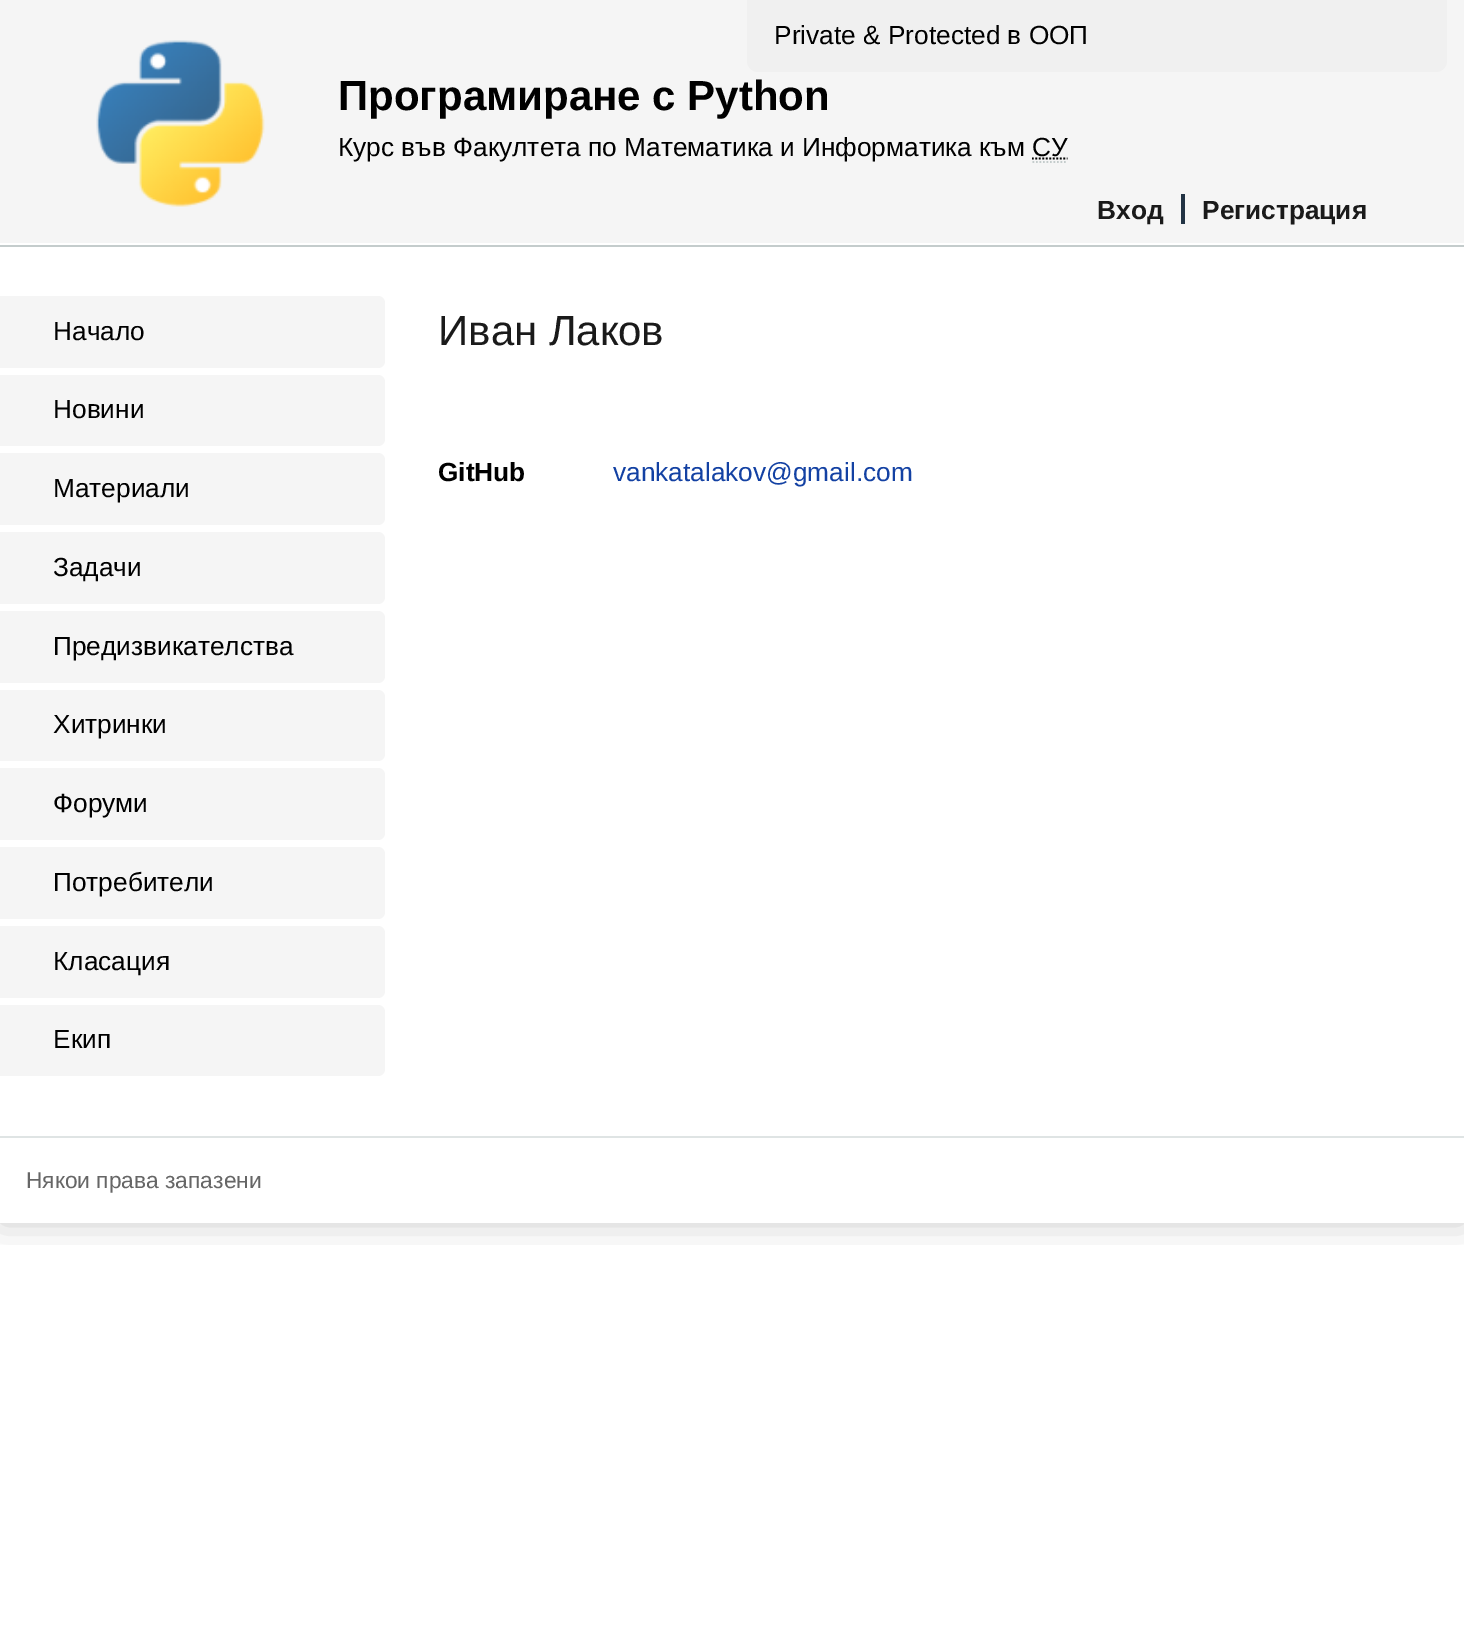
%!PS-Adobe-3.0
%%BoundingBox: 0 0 1464 1649
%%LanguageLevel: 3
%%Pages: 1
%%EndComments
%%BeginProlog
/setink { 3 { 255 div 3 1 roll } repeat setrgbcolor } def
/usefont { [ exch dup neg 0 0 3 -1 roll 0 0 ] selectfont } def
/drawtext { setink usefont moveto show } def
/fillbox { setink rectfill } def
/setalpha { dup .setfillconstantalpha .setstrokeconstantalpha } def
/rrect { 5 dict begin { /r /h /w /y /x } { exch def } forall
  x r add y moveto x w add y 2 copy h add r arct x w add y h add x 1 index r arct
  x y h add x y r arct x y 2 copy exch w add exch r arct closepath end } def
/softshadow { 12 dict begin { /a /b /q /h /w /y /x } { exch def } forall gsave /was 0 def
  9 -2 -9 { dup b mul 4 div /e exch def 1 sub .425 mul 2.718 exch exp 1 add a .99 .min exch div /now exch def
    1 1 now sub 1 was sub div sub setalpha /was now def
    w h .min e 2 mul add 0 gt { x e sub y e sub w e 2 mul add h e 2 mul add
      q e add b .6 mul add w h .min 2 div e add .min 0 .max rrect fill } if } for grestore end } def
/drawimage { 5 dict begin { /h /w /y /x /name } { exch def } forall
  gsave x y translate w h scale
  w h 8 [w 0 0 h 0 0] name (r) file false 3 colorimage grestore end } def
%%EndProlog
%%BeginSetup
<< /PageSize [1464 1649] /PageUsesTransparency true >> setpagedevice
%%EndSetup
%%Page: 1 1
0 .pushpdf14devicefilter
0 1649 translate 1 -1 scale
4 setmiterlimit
0 0 1464 1649 255 255 255 fillbox
gsave
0 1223 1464 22 rectclip
0 0 0 setink
0 0 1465 1223 0 17.5 0.2 softshadow
grestore
196 204 204 setink
0 245 moveto 0 247 lineto 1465 247 lineto 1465 2 lineto 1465 245 lineto closepath fill
0 0 1464 243 245 245 245 fillbox
240 240 240 setink
747 0 moveto 1447 0 lineto 1447 61 lineto 1447 67 1442 72 1436 72 curveto 758 72 lineto 752 72 747 67 747 61 curveto closepath fill
(Private & Protected в ООП) 774 44 /LiberationSans-Regular 26.25 0 0 0 drawtext
(assets/img1.rgb) 96 40 169 167 drawimage
(Програмиране с Python) 338 110 /LiberationSans-Bold 42 0 0 0 drawtext
(Курс във Факултета по Математика и Информатика към СУ) 338 156 /LiberationSans-Regular 26.25 0 0 0 drawtext
1.8 setlinewidth
[1.75 1.75] 0 setdash
1032 158.5 moveto 1067.5 158.5 lineto stroke
196 204 204 setink
1032.5 162 moveto 1067.5 162 lineto stroke
(Вход) 1097 219 /LiberationSans-Bold 26.25 26 26 26 drawtext
(Регистрация) 1202 219 /LiberationSans-Bold 26.25 26 26 26 drawtext
1181 194 4 30 34 51 68 fillbox
245 245 245 setink
0 296 moveto 378 296 lineto 382 296 385 299 385 303 curveto 385 361 lineto 385 365 382 368 378 368 curveto 0 368 lineto closepath fill
(Начало) 53 340 /LiberationSans-Regular 26.25 0 0 0 drawtext
245 245 245 setink
0 375 moveto 378 375 lineto 382 375 385 378 385 382 curveto 385 439 lineto 385 443 382 446 378 446 curveto 0 446 lineto closepath fill
(Новини) 53 418 /LiberationSans-Regular 26.25 0 0 0 drawtext
245 245 245 setink
0 453 moveto 378 453 lineto 382 453 385 456 385 460 curveto 385 518 lineto 385 522 382 525 378 525 curveto 0 525 lineto closepath fill
(Материали) 53 497 /LiberationSans-Regular 26.25 0 0 0 drawtext
245 245 245 setink
0 532 moveto 378 532 lineto 382 532 385 535 385 539 curveto 385 597 lineto 385 601 382 604 378 604 curveto 0 604 lineto closepath fill
(Задачи) 53 576 /LiberationSans-Regular 26.25 0 0 0 drawtext
245 245 245 setink
0 611 moveto 378 611 lineto 382 611 385 614 385 618 curveto 385 676 lineto 385 680 382 683 378 683 curveto 0 683 lineto closepath fill
(Предизвикателства) 53 655 /LiberationSans-Regular 26.25 0 0 0 drawtext
245 245 245 setink
0 690 moveto 378 690 lineto 382 690 385 693 385 697 curveto 385 754 lineto 385 758 382 761 378 761 curveto 0 761 lineto closepath fill
(Хитринки) 53 733 /LiberationSans-Regular 26.25 0 0 0 drawtext
245 245 245 setink
0 768 moveto 378 768 lineto 382 768 385 771 385 775 curveto 385 833 lineto 385 837 382 840 378 840 curveto 0 840 lineto closepath fill
(Форуми) 53 812 /LiberationSans-Regular 26.25 0 0 0 drawtext
245 245 245 setink
0 847 moveto 378 847 lineto 382 847 385 850 385 854 curveto 385 912 lineto 385 916 382 919 378 919 curveto 0 919 lineto closepath fill
(Потребители) 53 891 /LiberationSans-Regular 26.25 0 0 0 drawtext
245 245 245 setink
0 926 moveto 378 926 lineto 382 926 385 929 385 933 curveto 385 991 lineto 385 995 382 998 378 998 curveto 0 998 lineto closepath fill
(Класация) 53 970 /LiberationSans-Regular 26.25 0 0 0 drawtext
245 245 245 setink
0 1005 moveto 378 1005 lineto 382 1005 385 1008 385 1012 curveto 385 1069 lineto 385 1073 382 1076 378 1076 curveto 0 1076 lineto closepath fill
(Екип) 53 1048 /LiberationSans-Regular 26.25 0 0 0 drawtext
(Иван Лаков) 438 345 /LiberationSans-Regular 42 26 26 26 drawtext
(GitHub) 438 481 /LiberationSans-Bold 26.25 0 0 0 drawtext
(vankatalakov@gmail.com) 613 481 /LiberationSans-Regular 26.25 19 65 163 drawtext
0 1136 1464 2 223 228 228 fillbox
(Някои права запазени) 26 1188 /LiberationSans-Regular 22.75 102 102 102 drawtext
.poppdf14devicefilter showpage
%%EOF
